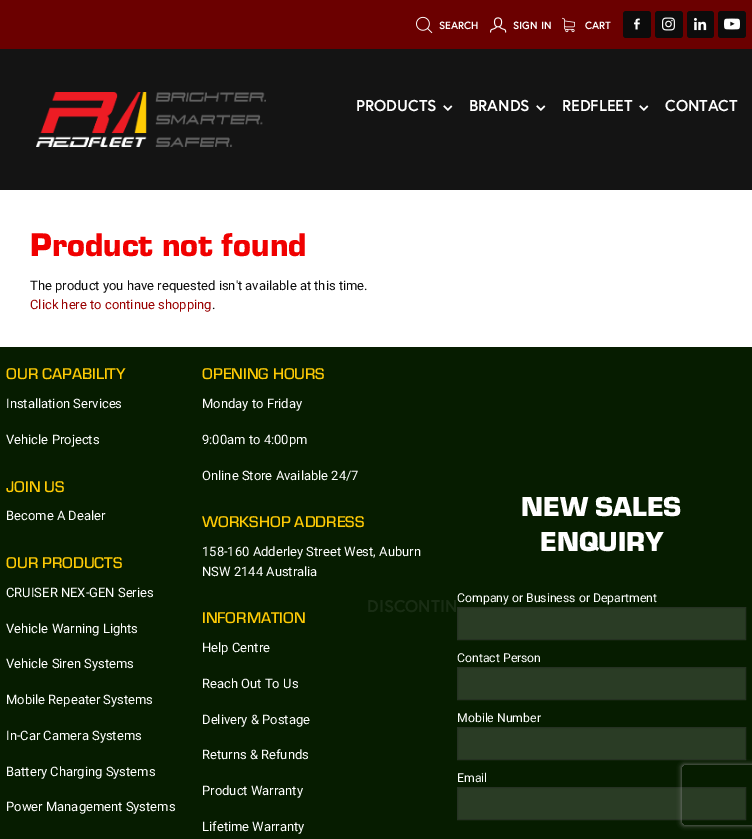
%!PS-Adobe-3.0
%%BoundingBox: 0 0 752 839
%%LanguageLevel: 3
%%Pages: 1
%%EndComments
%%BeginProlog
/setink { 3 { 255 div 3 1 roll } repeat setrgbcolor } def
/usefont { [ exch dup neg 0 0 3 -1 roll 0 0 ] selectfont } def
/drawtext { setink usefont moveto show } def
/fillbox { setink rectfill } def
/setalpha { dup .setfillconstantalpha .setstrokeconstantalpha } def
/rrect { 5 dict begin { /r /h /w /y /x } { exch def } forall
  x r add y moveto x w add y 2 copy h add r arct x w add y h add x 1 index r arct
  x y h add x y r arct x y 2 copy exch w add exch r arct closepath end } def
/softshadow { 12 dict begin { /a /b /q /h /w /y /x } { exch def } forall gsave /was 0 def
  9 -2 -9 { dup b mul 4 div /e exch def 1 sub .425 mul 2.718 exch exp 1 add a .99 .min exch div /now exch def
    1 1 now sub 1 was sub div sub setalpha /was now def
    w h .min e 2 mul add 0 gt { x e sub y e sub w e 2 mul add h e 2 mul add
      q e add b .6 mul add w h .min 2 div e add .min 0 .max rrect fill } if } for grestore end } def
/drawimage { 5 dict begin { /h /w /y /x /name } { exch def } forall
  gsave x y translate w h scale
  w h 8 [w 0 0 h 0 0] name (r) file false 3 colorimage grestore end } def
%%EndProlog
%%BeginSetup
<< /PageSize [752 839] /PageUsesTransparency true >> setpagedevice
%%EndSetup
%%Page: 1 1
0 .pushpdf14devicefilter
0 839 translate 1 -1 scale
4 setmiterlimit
0 0 752 839 255 255 255 fillbox
0 0 752 49 107 0 0 fillbox
(assets/img1.rgb) 416 16 17 18 drawimage
(SEARCH) 439 29 /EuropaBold-Bold 10.5 255 255 255 drawtext
(assets/img2.rgb) 490 17 17 16 drawimage
(SIGN IN) 513 29 /EuropaBold-Bold 10.5 255 255 255 drawtext
(assets/img3.rgb) 562 17 13 16 drawimage
(CART) 585 29 /EuropaBold-Bold 10.5 255 255 255 drawtext
12 12 12 setink
623 11 28 27 3 rrect fill
(assets/img4.rgb) 634 18 6 12 drawimage
655 11 28 27 3 rrect fill
(assets/img5.rgb) 662 17 13 14 drawimage
687 11 27 27 3 rrect fill
(assets/img6.rgb) 694 17 13 14 drawimage
718 11 28 27 3 rrect fill
(assets/img7.rgb) 724 18 16 12 drawimage
0 49 752 141 20 20 20 fillbox
(assets/img8.rgb) 36 92 230 55 drawimage
(PRODUCTS) 356 111 /EuropaBold-Bold 15.75 255 255 255 drawtext
(assets/img9.rgb) 443 105 10 6 drawimage
0 347 752 492 6 28 0 fillbox
(DISCONTIN) 367 612 /EuropaBold-Bold 17 25 45 20 drawtext
(BRANDS) 469 111 /EuropaBold-Bold 15.75 255 255 255 drawtext
(assets/img9.rgb) 536 105 10 6 drawimage
(REDFLEET) 562 111 /EuropaBold-Bold 15.75 255 255 255 drawtext
(assets/img9.rgb) 639 105 10 6 drawimage
(CONTACT) 665 111 /EuropaBold-Bold 15.75 255 255 255 drawtext
(Product not found) 30 256 /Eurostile-Black 34 240 0 0 drawtext
(The product you have requested isn't available at this time.) 30 290 /Roboto-Regular 13 12 12 12 drawtext
(Click here to continue shopping) 30 309 /Roboto-Regular 13 153 0 0 drawtext
(.) 212 309 /Roboto-Regular 13 12 12 12 drawtext
(OUR CAPABILITY) 6 379 /Eurostile-Medium 16.25 255 203 5 drawtext
(Installation Services) 6 408 /Roboto-Regular 13 255 255 255 drawtext
(Vehicle Projects) 6 444 /Roboto-Regular 13 255 255 255 drawtext
(JOIN US) 6 492 /Eurostile-Medium 16.25 255 203 5 drawtext
(Become A Dealer) 6 520 /Roboto-Regular 13 255 255 255 drawtext
(OUR PRODUCTS) 6 568 /Eurostile-Medium 16.25 255 203 5 drawtext
(CRUISER NEX-GEN Series) 6 597 /Roboto-Regular 13 255 255 255 drawtext
(Vehicle Warning Lights) 6 633 /Roboto-Regular 13 255 255 255 drawtext
(Vehicle Siren Systems) 6 668 /Roboto-Regular 13 255 255 255 drawtext
(Mobile Repeater Systems) 6 704 /Roboto-Regular 13 255 255 255 drawtext
(In-Car Camera Systems) 6 740 /Roboto-Regular 13 255 255 255 drawtext
(Battery Charging Systems) 6 776 /Roboto-Regular 13 255 255 255 drawtext
(Power Management Systems) 6 811 /Roboto-Regular 13 255 255 255 drawtext
(OPENING HOURS) 202 379 /Eurostile-Medium 16.25 255 203 5 drawtext
(Monday to Friday) 202 408 /Roboto-Regular 13 255 255 255 drawtext
(9:00am to 4:00pm) 202 444 /Roboto-Regular 13 255 255 255 drawtext
(Online Store Available 24/7) 202 480 /Roboto-Regular 13 255 255 255 drawtext
(WORKSHOP ADDRESS) 202 527 /Eurostile-Medium 16.25 255 203 5 drawtext
(158-160 Adderley Street West, Auburn) 202 556 /Roboto-Regular 13 255 255 255 drawtext
(NSW 2144 Australia) 202 576 /Roboto-Regular 13 255 255 255 drawtext
(INFORMATION) 202 623 /Eurostile-Medium 16.25 255 203 5 drawtext
(Help Centre) 202 652 /Roboto-Regular 13 255 255 255 drawtext
(Reach Out To Us) 202 688 /Roboto-Regular 13 255 255 255 drawtext
(Delivery & Postage) 202 724 /Roboto-Regular 13 255 255 255 drawtext
(Returns & Refunds) 202 759 /Roboto-Regular 13 255 255 255 drawtext
(Product Warranty) 202 795 /Roboto-Regular 13 255 255 255 drawtext
(Lifetime Warranty) 202 831 /Roboto-Regular 13 255 255 255 drawtext
(NEW SALES) 521 516 /Eurostile-Black 28.5 255 255 255 drawtext
(ENQUIRY) 540 551 /Eurostile-Black 28.5 255 255 255 drawtext
(Company or Business or Department) 457 602 /Roboto-Regular 12.25 255 255 255 drawtext
42 60 37 setink
457.5 607.5 moveto 745.5 607.5 lineto 745.5 639.5 lineto 457.5 639.5 lineto closepath gsave fill grestore
38 50 35 setink
stroke
(Contact Person) 457 662 /Roboto-Regular 12.25 255 255 255 drawtext
42 60 37 setink
457.5 667.5 moveto 745.5 667.5 lineto 745.5 699.5 lineto 457.5 699.5 lineto closepath gsave fill grestore
38 50 35 setink
stroke
(Mobile Number) 457 722 /Roboto-Regular 12.25 255 255 255 drawtext
42 60 37 setink
457.5 727.5 moveto 745.5 727.5 lineto 745.5 759.5 lineto 457.5 759.5 lineto closepath gsave fill grestore
38 50 35 setink
stroke
(Email) 457 782 /Roboto-Regular 12.25 255 255 255 drawtext
42 60 37 setink
457.5 787.5 moveto 745.5 787.5 lineto 745.5 819.5 lineto 457.5 819.5 lineto closepath gsave fill grestore
38 50 35 setink
stroke
gsave
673 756 moveto 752 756 lineto 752 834 lineto 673 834 lineto closepath 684 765 moveto 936 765 lineto 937 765 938 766 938 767 curveto 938 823 lineto 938 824 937 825 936 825 curveto 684 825 lineto 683 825 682 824 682 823 curveto 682 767 lineto 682 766 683 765 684 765 curveto closepath eoclip newpath
128 128 128 setink
682 765 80 60 2 2.5 1 softshadow
grestore
.poppdf14devicefilter showpage
%%EOF
